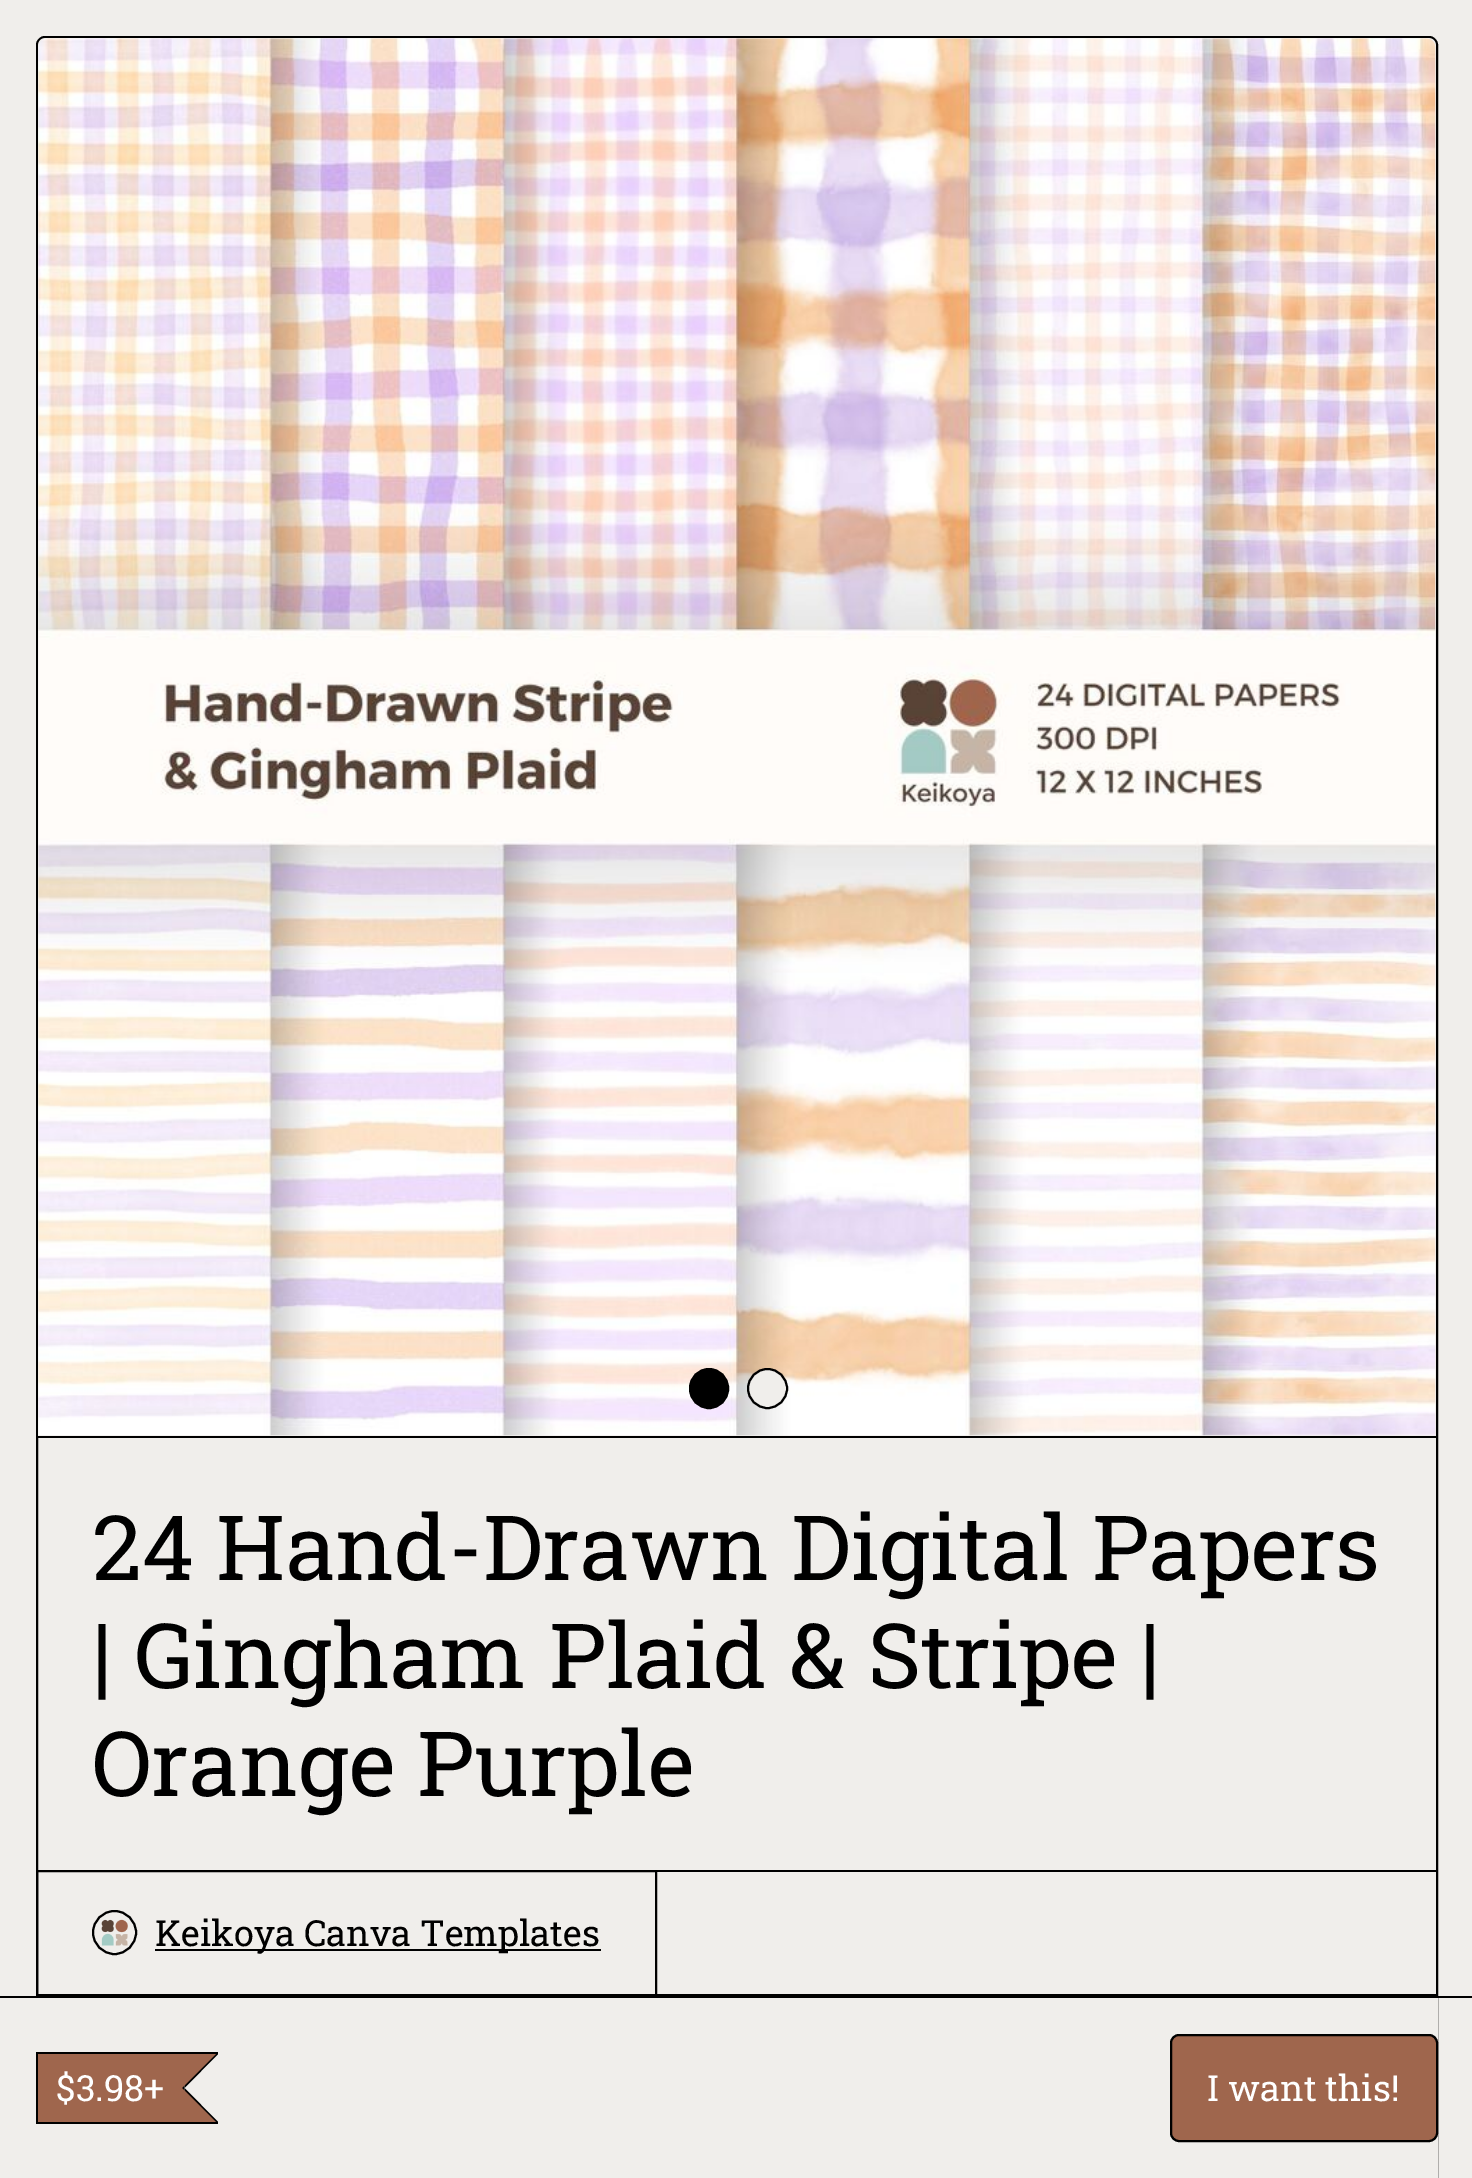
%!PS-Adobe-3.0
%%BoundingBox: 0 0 1472 2178
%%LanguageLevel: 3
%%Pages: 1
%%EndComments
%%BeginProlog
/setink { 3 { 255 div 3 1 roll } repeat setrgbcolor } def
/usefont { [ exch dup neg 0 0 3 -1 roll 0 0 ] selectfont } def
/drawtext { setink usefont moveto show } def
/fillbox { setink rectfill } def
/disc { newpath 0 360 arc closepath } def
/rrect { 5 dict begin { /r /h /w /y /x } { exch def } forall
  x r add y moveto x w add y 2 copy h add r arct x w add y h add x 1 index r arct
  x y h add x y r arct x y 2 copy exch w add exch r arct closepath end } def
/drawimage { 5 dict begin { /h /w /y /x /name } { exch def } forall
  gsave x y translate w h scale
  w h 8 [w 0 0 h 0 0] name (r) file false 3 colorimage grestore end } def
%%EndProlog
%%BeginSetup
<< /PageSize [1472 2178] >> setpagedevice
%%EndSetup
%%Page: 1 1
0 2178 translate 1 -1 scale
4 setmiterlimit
0 0 1472 2178 240 238 235 fillbox
0 0 0 setink
2 setlinewidth
37 37 1400 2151 8 rrect stroke
38 1436 1398 2 0 0 0 fillbox
(assets/img1.rgb) 38 38 1398 1398 drawimage
690 1369 38 39 19 rrect gsave fill grestore
stroke
240 238 235 setink
767.5 1388.5 19.5 disc gsave fill grestore
0 0 0 setink
stroke
(24 Hand-Drawn Digital Papers) 92 1580 /RobotoSlab-Regular 90 0 0 0 drawtext
(| Gingham Plaid & Stripe |) 92 1688 /RobotoSlab-Regular 90 0 0 0 drawtext
(Orange Purple) 92 1796 /RobotoSlab-Regular 90 0 0 0 drawtext
657 1870 779 2 0 0 0 fillbox
37 1871 619 124 rectstroke
114.5 1932.5 21.5 disc stroke
(assets/img2.rgb) 101 1919 27 27 drawimage
155 1949 446 2 0 0 0 fillbox
(Keikoya Canva Templates) 155 1946 /RobotoSlab-Regular 36 0 0 0 drawtext
657 1994 779 2 0 0 0 fillbox
0 1996 moveto 0 1998 lineto 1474 1998 lineto 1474 2176 lineto 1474 1996 lineto closepath fill
36 1998 1402 180 240 238 235 fillbox
36 2052 182 2 0 0 0 fillbox
36 2122 182 2 0 0 0 fillbox
36 2052 2 72 0 0 0 fillbox
38 2054 144 68 159 102 77 fillbox
0 0 0 setink
182 2054 moveto 218 2054 lineto 184.5 2088 lineto closepath fill
218 2122 moveto 182 2122 lineto 184.5 2088 lineto closepath fill
182 2086 2 4 0 0 0 fillbox
159 102 77 setink
180 2054 moveto 216 2054 lineto 182 2088 lineto closepath fill
216 2122 moveto 180 2122 lineto 182 2088 lineto closepath fill
($3.98+) 56 2101 /RobotoSlab-Regular 36 255 255 255 drawtext
159 102 77 setink
1171 2035 266 106 8 rrect gsave fill grestore
0 0 0 setink
stroke
(I want this!) 1207 2101 /RobotoSlab-Regular 36 255 255 255 drawtext
showpage
%%EOF
